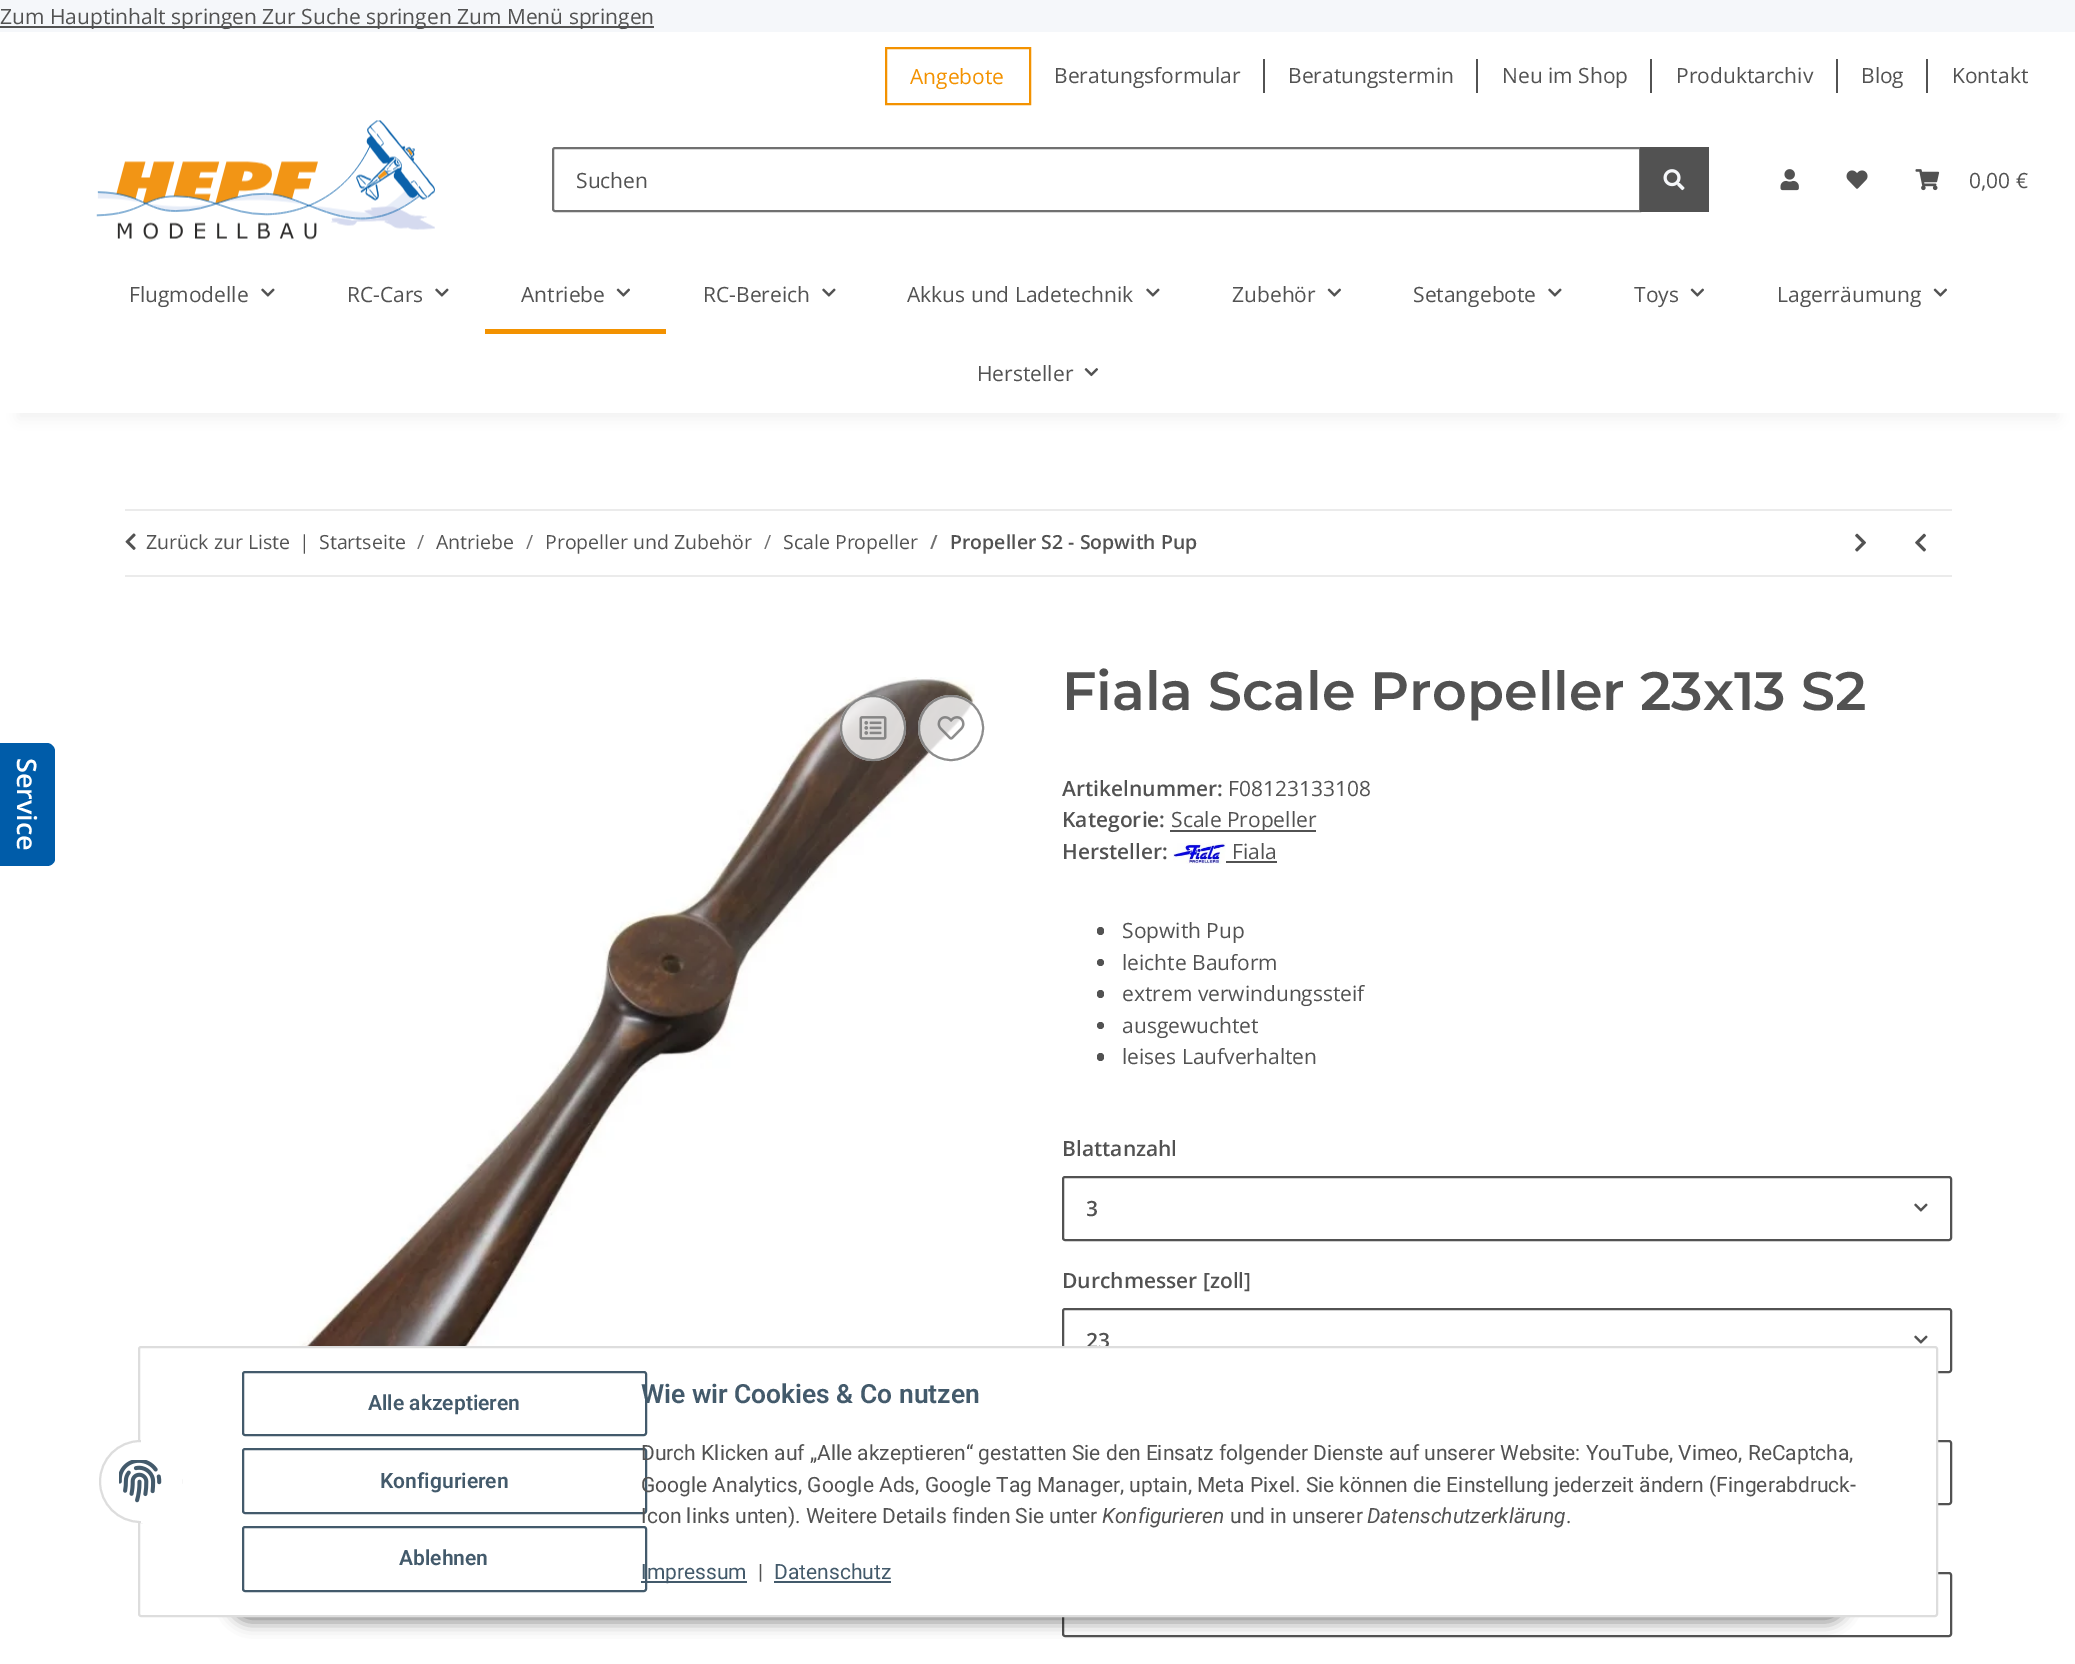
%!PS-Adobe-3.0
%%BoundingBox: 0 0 2075 1664
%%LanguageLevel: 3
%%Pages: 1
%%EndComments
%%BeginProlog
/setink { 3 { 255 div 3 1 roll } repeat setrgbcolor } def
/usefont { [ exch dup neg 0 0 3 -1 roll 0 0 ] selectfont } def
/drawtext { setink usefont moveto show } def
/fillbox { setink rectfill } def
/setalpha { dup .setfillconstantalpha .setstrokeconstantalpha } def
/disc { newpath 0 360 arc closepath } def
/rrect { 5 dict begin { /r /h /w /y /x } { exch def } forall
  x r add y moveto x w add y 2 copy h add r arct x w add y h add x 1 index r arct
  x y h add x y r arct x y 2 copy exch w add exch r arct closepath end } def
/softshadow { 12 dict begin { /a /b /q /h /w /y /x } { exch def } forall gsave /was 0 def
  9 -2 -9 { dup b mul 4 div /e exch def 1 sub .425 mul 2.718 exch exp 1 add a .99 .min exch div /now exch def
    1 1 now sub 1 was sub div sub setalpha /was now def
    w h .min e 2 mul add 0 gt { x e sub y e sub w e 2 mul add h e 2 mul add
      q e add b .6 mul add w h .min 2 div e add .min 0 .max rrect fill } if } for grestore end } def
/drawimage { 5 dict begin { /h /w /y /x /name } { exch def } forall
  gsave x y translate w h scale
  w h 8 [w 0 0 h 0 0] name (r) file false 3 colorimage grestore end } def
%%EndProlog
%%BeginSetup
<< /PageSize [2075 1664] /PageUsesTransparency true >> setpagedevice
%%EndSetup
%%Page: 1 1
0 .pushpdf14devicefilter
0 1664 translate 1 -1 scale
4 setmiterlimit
0 0 2075 1664 245 247 250 fillbox
0 26 654 2 82 82 82 fillbox
(Zum Hauptinhalt springen Zur Suche springen Zum Menü springen) 0 24 /OpenSans-Regular 21 82 82 82 drawtext
0 413 2075 1251 255 255 255 fillbox
0 0 0 setink
18 74 2040 345 0 7 0.06 softshadow
0 32 2075 381 255 255 255 fillbox
243 146 0 setink
2 setlinewidth
886 48 144 56 rectstroke
(Angebote) 910 84 /OpenSans-Regular 21 243 146 0 drawtext
(Beratungsformular) 1054 83 /OpenSans-Regular 21 82 82 82 drawtext
1263 59 2 34 82 82 82 fillbox
(Beratungstermin) 1288 83 /OpenSans-Regular 21 82 82 82 drawtext
1476 59 2 34 82 82 82 fillbox
(Neu im Shop) 1502 83 /OpenSans-Regular 21 82 82 82 drawtext
1650 59 2 34 82 82 82 fillbox
(Produktarchiv) 1676 83 /OpenSans-Regular 21 82 82 82 drawtext
1836 59 2 34 82 82 82 fillbox
(Blog) 1861 83 /OpenSans-Regular 21 82 82 82 drawtext
1926 59 2 34 82 82 82 fillbox
(Kontakt) 1952 83 /OpenSans-Regular 21 82 82 82 drawtext
(assets/img1.rgb) 96 120 339 120 drawimage
112 112 112 setink
555 148 moveto 1640 148 lineto 1640 211 lineto 555 211 lineto 554 211 553 210 553 209 curveto 553 150 lineto 553 149 554 148 555 148 curveto closepath stroke
(Suchen) 576 188 /OpenSans-Regular 21 82 82 82 drawtext
1640 147 69 65 82 82 82 fillbox
(assets/img2.rgb) 1663 169 22 22 drawimage
(assets/img3.rgb) 1780 169 19 22 drawimage
(assets/img4.rgb) 1846 170 22 19 drawimage
(assets/img5.rgb) 1915 169 25 22 drawimage
(0,00 €) 1969 188 /OpenSans-Regular 21 82 82 82 drawtext
(Flugmodelle) 129 302 /OpenSans-Regular 21 82 82 82 drawtext
(assets/img6.rgb) 261 288 14 9 drawimage
(RC-Cars) 347 302 /OpenSans-Regular 21 82 82 82 drawtext
(assets/img6.rgb) 435 288 14 9 drawimage
(Antriebe) 521 302 /OpenSans-Regular 21 82 82 82 drawtext
(assets/img7.rgb) 616 288 14 9 drawimage
485 329 181 5 243 146 0 fillbox
(RC-Bereich) 703 302 /OpenSans-Regular 21 82 82 82 drawtext
(assets/img6.rgb) 822 288 14 9 drawimage
(Akkus und Ladetechnik) 907 302 /OpenSans-Regular 21 82 82 82 drawtext
(assets/img6.rgb) 1146 288 14 9 drawimage
(Zubehör) 1232 302 /OpenSans-Regular 21 82 82 82 drawtext
(assets/img7.rgb) 1327 288 14 9 drawimage
(Setangebote) 1413 302 /OpenSans-Regular 21 82 82 82 drawtext
(assets/img6.rgb) 1548 288 14 9 drawimage
(Toys) 1634 302 /OpenSans-Regular 21 82 82 82 drawtext
(assets/img7.rgb) 1690 288 14 9 drawimage
(Lagerräumung) 1777 302 /OpenSans-Regular 21 82 82 82 drawtext
(assets/img7.rgb) 1933 288 14 9 drawimage
(Hersteller) 977 381 /OpenSans-Regular 21 82 82 82 drawtext
(assets/img8.rgb) 1084 368 15 9 drawimage
0 92 169 setink
55 751 moveto 55 859 lineto 55 863 51 866 47 866 curveto -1 866 lineto -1 743 lineto 47 743 lineto 51 743 55 747 55 751 curveto closepath fill
/OpenSans-SemiBold 27 usefont
255 255 255 setink
gsave 17 758 translate 90 rotate 0 0 moveto (Service) show grestore
125 509 1827 2 235 235 235 fillbox
125 575 1827 2 235 235 235 fillbox
(assets/img9.rgb) 125 533 11 17 drawimage
(Zurück zur Liste) 146 549 /OpenSans-Regular 19.5 82 82 82 drawtext
(|) 299 549 /OpenSans-Regular 19.5 82 82 82 drawtext
(Startseite) 319 549 /OpenSans-Regular 19.5 82 82 82 drawtext
(/) 417 549 /OpenSans-Regular 19.5 112 112 112 drawtext
(Antriebe) 436 549 /OpenSans-Regular 19.5 82 82 82 drawtext
(/) 526 549 /OpenSans-Regular 19.5 112 112 112 drawtext
(Propeller und Zubehör) 545 549 /OpenSans-Regular 19.5 82 82 82 drawtext
(/) 764 549 /OpenSans-Regular 19.5 112 112 112 drawtext
(Scale Propeller) 783 549 /OpenSans-Regular 19.5 82 82 82 drawtext
(/) 930 549 /OpenSans-SemiBold 19.5 112 112 112 drawtext
(Propeller S2 - Sopwith Pup) 950 549 /OpenSans-SemiBold 19.5 82 82 82 drawtext
(assets/img10.rgb) 1855 533 11 19 drawimage
(assets/img11.rgb) 1915 533 11 19 drawimage
(assets/img12.rgb) 163 677 812 669 drawimage
0.8 setalpha
255 255 255 setink
873 728 33 disc fill
112 112 112 setink
873 728 32 disc stroke
1 setalpha
(assets/img13.rgb) 859 716 28 24 drawimage
0.8 setalpha
255 255 255 setink
951 728 33 disc fill
112 112 112 setink
951 728 32 disc stroke
1 setalpha
(assets/img14.rgb) 937 716 28 24 drawimage
(Fiala Scale Propeller 23x13 S2) 1062 710 /Montserrat-SemiBold 54 82 82 82 drawtext
(Artikelnummer:) 1062 796 /OpenSans-SemiBold 21 82 82 82 drawtext
(F08123133108) 1228 796 /OpenSans-Regular 21 82 82 82 drawtext
(Kategorie:) 1062 827 /OpenSans-SemiBold 21 82 82 82 drawtext
1170 830 146 2 82 82 82 fillbox
(Scale Propeller) 1171 827 /OpenSans-Regular 21 82 82 82 drawtext
(Hersteller:) 1062 859 /OpenSans-SemiBold 21 82 82 82 drawtext
(assets/img15.rgb) 1173 843 53 21 drawimage
(Fiala) 1232 859 /OpenSans-Regular 21 82 82 82 drawtext
1226 861 51 2 82 82 82 fillbox
1097 927 7 8 3.5 rrect fill
(Sopwith Pup) 1122 938 /OpenSans-Regular 21 82 82 82 drawtext
1100.5 962.5 3.5 disc fill
(leichte Bauform) 1122 970 /OpenSans-Regular 21 82 82 82 drawtext
1097 990 7 8 3.5 rrect fill
(extrem verwindungssteif) 1122 1001 /OpenSans-Regular 21 82 82 82 drawtext
1100.5 1025.5 3.5 disc fill
(ausgewuchtet) 1122 1033 /OpenSans-Regular 21 82 82 82 drawtext
1097 1053 7 8 3.5 rrect fill
(leises Laufverhalten) 1122 1064 /OpenSans-Regular 21 82 82 82 drawtext
(Blattanzahl) 1062 1156 /OpenSans-SemiBold 21 82 82 82 drawtext
1063 1177 888 63 2 rrect stroke
(3) 1086 1216 /OpenSans-SemiBold 21 82 82 82 drawtext
(assets/img6.rgb) 1914 1203 14 9 drawimage
(Durchmesser [zoll]) 1062 1288 /OpenSans-SemiBold 21 82 82 82 drawtext
1063 1309 888 63 2 rrect stroke
(23) 1086 1348 /OpenSans-SemiBold 21 82 82 82 drawtext
(assets/img6.rgb) 1914 1335 14 9 drawimage
1063 1441 888 63 2 rrect stroke
1063 1573 888 63 2 rrect stroke
0 0 0 setink
230 1574 1617 48 24 7.5 0.45 softshadow
255 255 255 setink
139 1347 1798 269 2 rrect gsave fill grestore
221 221 221 setink
stroke
255 255 255 setink
140.5 1481.5 40.5 disc gsave fill grestore
221 221 221 setink
stroke
141 1440 41 83 255 255 255 fillbox
(assets/img16.rgb) 119 1460 43 43 drawimage
67 90 107 setink
243 1372 403 63 2 rrect stroke
(Alle akzeptieren) 368 1410 /Roboto-SemiBold 21 67 90 107 drawtext
243 1449 403 64 2 rrect stroke
(Konfigurieren) 380 1488 /Roboto-SemiBold 21 67 90 107 drawtext
243 1527 403 64 2 rrect stroke
(Ablehnen) 399 1565 /Roboto-SemiBold 21 67 90 107 drawtext
(Wie wir Cookies & Co nutzen) 641 1403 /Roboto-SemiBold 26.4 67 90 107 drawtext
(Durch Klicken auf „Alle akzeptieren“ gestatten Sie den Einsatz folgender Dienste auf unserer Website: YouTube, Vimeo, ReCaptcha,) 641 1460 /Roboto-Regular 21 82 82 82 drawtext
(Google Analytics, Google Ads, Google Tag Manager, uptain, Meta Pixel. Sie können die Einstellung jederzeit ändern \(Fingerabdruck-) 641 1492 /Roboto-Regular 21 82 82 82 drawtext
(Icon links unten\). Weitere Details finden Sie unter) 641 1523 /Roboto-Regular 21 82 82 82 drawtext
(Konfigurieren) 1102 1523 /Roboto-Italic 21 82 82 82 drawtext
(und in unserer) 1230 1523 /Roboto-Regular 21 82 82 82 drawtext
(Datenschutzerklärung) 1367 1523 /Roboto-Italic 21 82 82 82 drawtext
(.) 1566 1523 /Roboto-Regular 21 82 82 82 drawtext
641 1581 106 2 67 90 107 fillbox
(Impressum) 641 1579 /Roboto-Regular 21 67 90 107 drawtext
(|) 758 1579 /Roboto-Regular 21 82 82 82 drawtext
(Datenschutz) 774 1579 /Roboto-Regular 21 67 90 107 drawtext
774 1581 117 2 67 90 107 fillbox
.poppdf14devicefilter showpage
%%EOF
